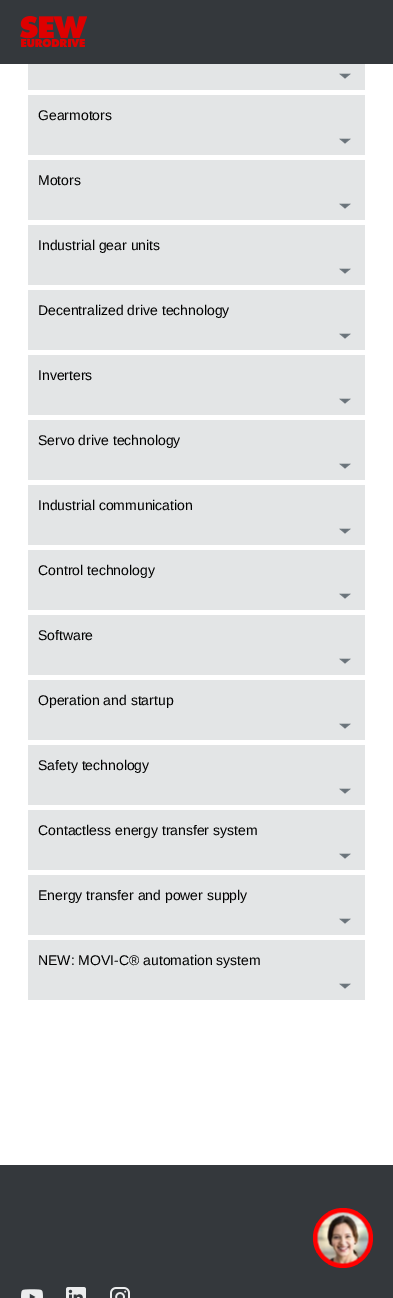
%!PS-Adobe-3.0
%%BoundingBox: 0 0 393 1298
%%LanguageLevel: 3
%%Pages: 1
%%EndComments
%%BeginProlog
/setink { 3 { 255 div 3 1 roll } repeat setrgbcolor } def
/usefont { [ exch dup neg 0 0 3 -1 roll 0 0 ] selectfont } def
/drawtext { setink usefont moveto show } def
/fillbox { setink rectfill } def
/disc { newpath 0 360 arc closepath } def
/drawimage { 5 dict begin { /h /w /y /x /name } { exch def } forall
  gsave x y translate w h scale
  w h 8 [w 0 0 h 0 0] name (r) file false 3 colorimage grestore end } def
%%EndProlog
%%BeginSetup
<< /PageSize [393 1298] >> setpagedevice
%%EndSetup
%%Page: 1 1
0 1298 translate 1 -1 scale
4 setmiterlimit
0 0 393 1298 255 255 255 fillbox
0 0 393 64 52 56 60 fillbox
(assets/img1.rgb) 20 16 67 32 drawimage
28 64 337 26 227 229 230 fillbox
(assets/img2.rgb) 339 73 12 6 drawimage
28 95 337 60 227 229 230 fillbox
(Gearmotors) 38 120 /LiberationSans-Regular 14 0 0 0 drawtext
(assets/img2.rgb) 339 138 12 6 drawimage
28 160 337 60 227 229 230 fillbox
(Motors) 38 185 /LiberationSans-Regular 14 0 0 0 drawtext
(assets/img2.rgb) 339 203 12 6 drawimage
28 225 337 60 227 229 230 fillbox
(Industrial gear units) 38 250 /LiberationSans-Regular 14 0 0 0 drawtext
(assets/img2.rgb) 339 268 12 6 drawimage
28 290 337 60 227 229 230 fillbox
(Decentralized drive technology) 38 315 /LiberationSans-Regular 14 0 0 0 drawtext
(assets/img2.rgb) 339 333 12 6 drawimage
28 355 337 60 227 229 230 fillbox
(Inverters) 38 380 /LiberationSans-Regular 14 0 0 0 drawtext
(assets/img2.rgb) 339 398 12 6 drawimage
28 420 337 60 227 229 230 fillbox
(Servo drive technology) 38 445 /LiberationSans-Regular 14 0 0 0 drawtext
(assets/img2.rgb) 339 463 12 6 drawimage
28 485 337 60 227 229 230 fillbox
(Industrial communication) 38 510 /LiberationSans-Regular 14 0 0 0 drawtext
(assets/img2.rgb) 339 528 12 6 drawimage
28 550 337 60 227 229 230 fillbox
(Control technology) 38 575 /LiberationSans-Regular 14 0 0 0 drawtext
(assets/img2.rgb) 339 593 12 6 drawimage
28 615 337 60 227 229 230 fillbox
(Software) 38 640 /LiberationSans-Regular 14 0 0 0 drawtext
(assets/img2.rgb) 339 658 12 6 drawimage
28 680 337 60 227 229 230 fillbox
(Operation and startup) 38 705 /LiberationSans-Regular 14 0 0 0 drawtext
(assets/img2.rgb) 339 723 12 6 drawimage
28 745 337 60 227 229 230 fillbox
(Safety technology) 38 770 /LiberationSans-Regular 14 0 0 0 drawtext
(assets/img2.rgb) 339 788 12 6 drawimage
28 810 337 60 227 229 230 fillbox
(Contactless energy transfer system) 38 835 /LiberationSans-Regular 14 0 0 0 drawtext
(assets/img2.rgb) 339 853 12 6 drawimage
28 875 337 60 227 229 230 fillbox
(Energy transfer and power supply) 38 900 /LiberationSans-Regular 14 0 0 0 drawtext
(assets/img2.rgb) 339 918 12 6 drawimage
28 940 337 60 227 229 230 fillbox
(NEW: MOVI-C® automation system) 38 965 /LiberationSans-Regular 14 0 0 0 drawtext
(assets/img2.rgb) 339 983 12 6 drawimage
0 1165 393 133 52 56 60 fillbox
(assets/img3.rgb) 21 1289 22 9 drawimage
(assets/img4.rgb) 66 1287 20 11 drawimage
(assets/img5.rgb) 110 1287 20 11 drawimage
255 0 0 setink
343 1238 30 disc fill
(assets/img6.rgb) 317 1212 52 52 drawimage
showpage
%%EOF
